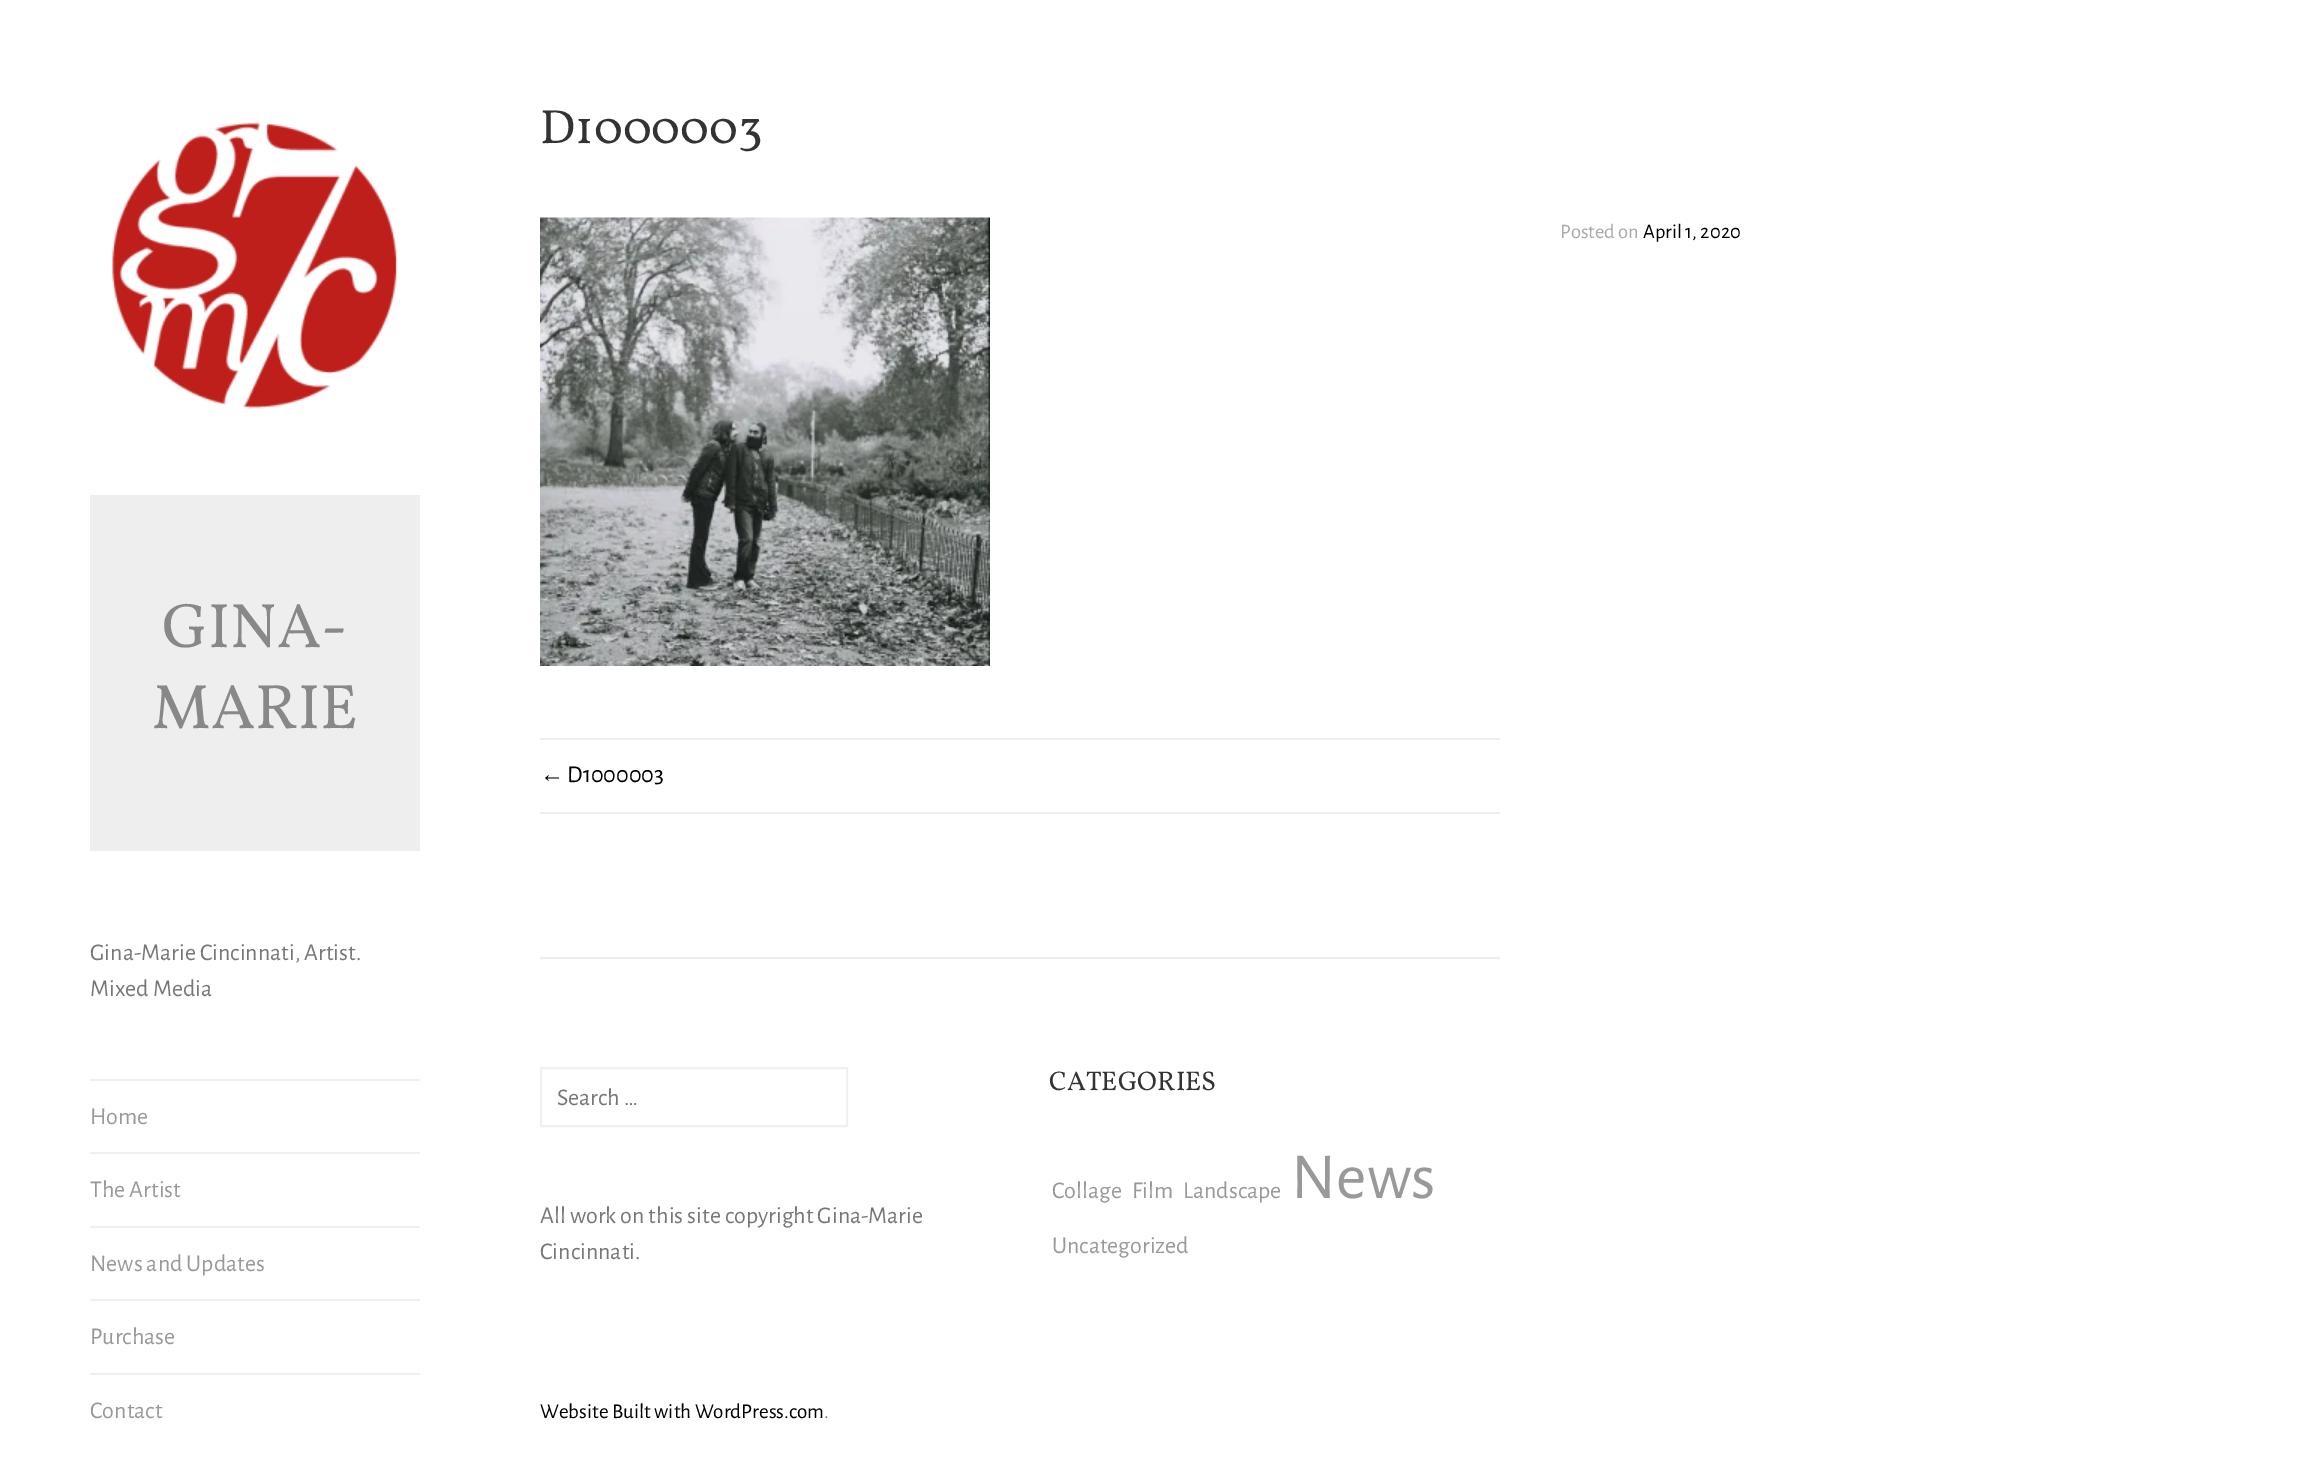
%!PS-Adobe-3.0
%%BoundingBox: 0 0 2305 1461
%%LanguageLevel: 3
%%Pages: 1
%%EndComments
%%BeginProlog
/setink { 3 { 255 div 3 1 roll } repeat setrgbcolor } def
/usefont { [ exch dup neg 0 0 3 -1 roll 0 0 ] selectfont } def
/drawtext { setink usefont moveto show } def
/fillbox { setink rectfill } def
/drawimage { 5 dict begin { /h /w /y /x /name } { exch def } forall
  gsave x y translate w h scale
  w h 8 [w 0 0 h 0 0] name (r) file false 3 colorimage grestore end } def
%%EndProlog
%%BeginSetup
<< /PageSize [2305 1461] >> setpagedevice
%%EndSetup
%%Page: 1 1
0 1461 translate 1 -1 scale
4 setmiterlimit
0 0 2305 1461 255 255 255 fillbox
(assets/img1.rgb) 112 122 286 287 drawimage
90 495 330 356 238 238 238 fillbox
(GINA-) 162 647 /Vollkorn-Regular 63 136 136 136 drawtext
(MARIE) 152 728 /Vollkorn-Regular 63 136 136 136 drawtext
(Gina-Marie Cincinnati, Artist.) 90 960 /AlegreyaSans-Regular 24 119 119 119 drawtext
(Mixed Media) 90 996 /AlegreyaSans-Regular 24 119 119 119 drawtext
90 1079 330 2 240 240 240 fillbox
(Home) 90 1124 /AlegreyaSans-Regular 24 153 153 153 drawtext
90 1152 330 2 240 240 240 fillbox
(The Artist) 90 1197 /AlegreyaSans-Regular 24 153 153 153 drawtext
90 1226 330 2 240 240 240 fillbox
(News and Updates) 90 1271 /AlegreyaSans-Regular 24 153 153 153 drawtext
90 1299 330 2 240 240 240 fillbox
(Purchase) 90 1344 /AlegreyaSans-Regular 24 153 153 153 drawtext
90 1373 330 2 240 240 240 fillbox
(Contact) 90 1418 /AlegreyaSans-Regular 24 153 153 153 drawtext
(D1000003) 540 143 /Vollkorn-Regular 48 51 51 51 drawtext
(assets/img2.rgb) 540 217 450 449 drawimage
(Posted on) 1560 238 /AlegreyaSans-Regular 20.5 170 170 170 drawtext
(April 1, 2020) 1643 238 /AlegreyaSans-Regular 20.5 0 0 0 drawtext
540 738 960 2 238 238 238 fillbox
540 812 960 2 238 238 238 fillbox
(←) 540 782 /LiberationSans-Regular 24 0 0 0 drawtext
(D1000003) 567 782 /AlegreyaSans-Regular 24 0 0 0 drawtext
540 957 960 2 238 238 238 fillbox
240 240 240 setink
2 setlinewidth
541 1068 306 58 rectstroke
(Search …) 557 1105 /AlegreyaSans-Regular 24 119 119 119 drawtext
(All work on this site copyright Gina-Marie) 540 1223 /AlegreyaSans-Regular 24 119 119 119 drawtext
(Cincinnati.) 540 1259 /AlegreyaSans-Regular 24 119 119 119 drawtext
(CATEGORIES) 1049 1090 /Vollkorn-Regular 27 51 51 51 drawtext
(Collage) 1052 1198 /AlegreyaSans-Regular 24 153 153 153 drawtext
(Film) 1132 1198 /AlegreyaSans-Regular 24 153 153 153 drawtext
(Landscape) 1183 1198 /AlegreyaSans-Regular 24 153 153 153 drawtext
(News) 1291 1198 /AlegreyaSans-Regular 66 153 153 153 drawtext
(Uncategorized) 1052 1253 /AlegreyaSans-Regular 24 153 153 153 drawtext
(Website Built with WordPress.com) 540 1418 /AlegreyaSans-Regular 21 0 0 0 drawtext
(.) 824 1418 /AlegreyaSans-Regular 21 119 119 119 drawtext
showpage
%%EOF
